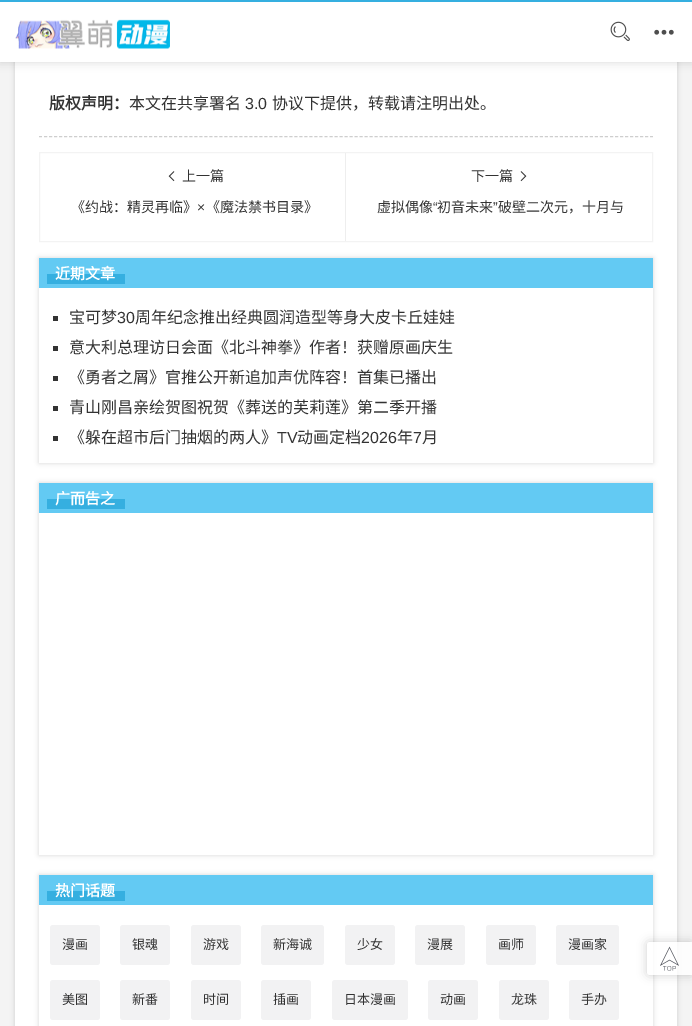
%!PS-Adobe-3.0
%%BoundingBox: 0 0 692 1026
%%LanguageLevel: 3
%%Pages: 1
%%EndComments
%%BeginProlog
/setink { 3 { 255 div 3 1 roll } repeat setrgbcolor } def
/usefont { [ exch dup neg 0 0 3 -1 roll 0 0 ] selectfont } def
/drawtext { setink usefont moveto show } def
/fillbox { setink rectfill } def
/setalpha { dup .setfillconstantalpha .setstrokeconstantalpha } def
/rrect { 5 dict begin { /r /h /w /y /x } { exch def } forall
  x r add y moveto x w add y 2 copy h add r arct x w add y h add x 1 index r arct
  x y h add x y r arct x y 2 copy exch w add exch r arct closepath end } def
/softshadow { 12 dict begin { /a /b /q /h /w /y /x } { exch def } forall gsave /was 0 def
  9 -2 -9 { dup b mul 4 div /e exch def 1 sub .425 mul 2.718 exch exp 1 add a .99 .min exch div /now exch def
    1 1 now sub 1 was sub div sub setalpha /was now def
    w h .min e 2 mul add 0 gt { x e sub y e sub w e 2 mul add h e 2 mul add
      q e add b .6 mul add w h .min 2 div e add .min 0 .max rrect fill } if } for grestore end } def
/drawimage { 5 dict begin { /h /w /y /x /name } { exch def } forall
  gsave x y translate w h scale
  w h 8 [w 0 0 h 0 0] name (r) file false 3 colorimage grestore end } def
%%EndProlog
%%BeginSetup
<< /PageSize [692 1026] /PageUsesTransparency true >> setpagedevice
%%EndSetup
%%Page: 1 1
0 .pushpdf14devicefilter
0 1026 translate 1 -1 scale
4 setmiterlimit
0 0 692 1026 244 244 244 fillbox
0 0 0 setink
15 -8 662 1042 0 2.5 0.15 softshadow
15 62 662 964 255 255 255 fillbox
0 0 0 setink
0 0 692 62 0 5 0.15 softshadow
0 2 692 60 255 255 255 fillbox
0 0 692 2 53 175 224 fillbox
(assets/img1.rgb) 15 19 155 30 drawimage
(assets/img2.rgb) 610 21 20 20 drawimage
(assets/img3.rgb) 654 29 20 6 drawimage
206 206 206 setink
[3 2.01] 0 setdash
39 136.5 moveto 653 136.5 lineto stroke
(版权声明：) 49 109 /NotoSansCJKSC-Bold 16 51 51 51 drawtext
(本文在共享署名) 129 109 /NotoSansCJKSC-Regular 16 51 51 51 drawtext
(3.0) 245 109 /LiberationSans-Regular 16 51 51 51 drawtext
(协议下提供，转载请注明出处。) 272 109 /NotoSansCJKSC-Regular 16 51 51 51 drawtext
243 243 243 setink
[] 0 setdash
39.5 152.5 613 89 rectstroke
(assets/img4.rgb) 168 171 7 11 drawimage
(上一篇) 182 181 /NotoSansCJKSC-Regular 14 51 51 51 drawtext
(《约战：精灵再临》) 71 212 /NotoSansCJKSC-Regular 14 51 51 51 drawtext
(×) 197 212 /LiberationSans-Regular 14 51 51 51 drawtext
(《魔法禁书目录》) 206 212 /NotoSansCJKSC-Regular 14 51 51 51 drawtext
345 153 1 88 238 238 238 fillbox
(下一篇) 471 181 /NotoSansCJKSC-Regular 14 51 51 51 drawtext
(assets/img5.rgb) 520 171 7 11 drawimage
(虚拟偶像) 377 212 /NotoSansCJKSC-Regular 14 51 51 51 drawtext
(“) 433 212 /LiberationSans-Regular 14 51 51 51 drawtext
(初音未来) 437 212 /NotoSansCJKSC-Regular 14 51 51 51 drawtext
(”) 493 212 /LiberationSans-Regular 14 51 51 51 drawtext
(破壁二次元，十月与) 498 212 /NotoSansCJKSC-Regular 14 51 51 51 drawtext
0 0 0 setink
39 258 614 205 0 2.5 0.15 softshadow
39 288 614 175 255 255 255 fillbox
39 258 614 30 99 202 243 fillbox
47 274 78 10 53 175 224 fillbox
(近期文章) 55 279 /NotoSansCJKSC-Bold 15 255 255 255 drawtext
53 316 5 5 51 51 51 fillbox
(宝可梦) 69 323 /NotoSansCJKSC-Regular 16 51 51 51 drawtext
(30) 117 323 /LiberationSans-Regular 16 51 51 51 drawtext
(周年纪念推出经典圆润造型等身大皮卡丘娃娃) 135 323 /NotoSansCJKSC-Regular 16 51 51 51 drawtext
53 346 5 5 51 51 51 fillbox
(意大利总理访日会面《北斗神拳》作者！获赠原画庆生) 69 353 /NotoSansCJKSC-Regular 16 51 51 51 drawtext
53 376 5 5 51 51 51 fillbox
(《勇者之屑》官推公开新追加声优阵容！首集已播出) 69 383 /NotoSansCJKSC-Regular 16 51 51 51 drawtext
53 406 5 5 51 51 51 fillbox
(青山刚昌亲绘贺图祝贺《葬送的芙莉莲》第二季开播) 69 413 /NotoSansCJKSC-Regular 16 51 51 51 drawtext
53 436 5 5 51 51 51 fillbox
(《躲在超市后门抽烟的两人》) 69 443 /NotoSansCJKSC-Regular 16 51 51 51 drawtext
(TV) 277 443 /LiberationSans-Regular 16 51 51 51 drawtext
(动画定档) 297 443 /NotoSansCJKSC-Regular 16 51 51 51 drawtext
(2026) 361 443 /LiberationSans-Regular 16 51 51 51 drawtext
(年) 397 443 /NotoSansCJKSC-Regular 16 51 51 51 drawtext
(7) 413 443 /LiberationSans-Regular 16 51 51 51 drawtext
(月) 422 443 /NotoSansCJKSC-Regular 16 51 51 51 drawtext
gsave
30 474 moveto 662 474 lineto 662 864 lineto 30 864 lineto closepath 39 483 moveto 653 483 lineto 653 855 lineto 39 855 lineto closepath eoclip newpath
0 0 0 setink
39 483 614 372 0 2.5 0.15 softshadow
grestore
39 483 614 30 99 202 243 fillbox
47 499 78 10 53 175 224 fillbox
(广而告之) 55 504 /NotoSansCJKSC-Bold 15 255 255 255 drawtext
gsave
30 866 moveto 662 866 lineto 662 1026 lineto 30 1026 lineto closepath 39 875 moveto 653 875 lineto 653 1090 lineto 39 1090 lineto closepath eoclip newpath
0 0 0 setink
39 875 614 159 0 2.5 0.15 softshadow
grestore
39 875 614 30 99 202 243 fillbox
47 891 78 10 53 175 224 fillbox
(热门话题) 55 896 /NotoSansCJKSC-Bold 15 255 255 255 drawtext
242 242 243 setink
50 925 50 40 3 rrect fill
(漫画) 62 949 /NotoSansCJKSC-Regular 13 51 51 51 drawtext
242 242 243 setink
120 925 50 40 3 rrect fill
(银魂) 132 949 /NotoSansCJKSC-Regular 13 51 51 51 drawtext
242 242 243 setink
191 925 50 40 3 rrect fill
(游戏) 203 949 /NotoSansCJKSC-Regular 13 51 51 51 drawtext
242 242 243 setink
261 925 63 40 3 rrect fill
(新海诚) 273 949 /NotoSansCJKSC-Regular 13 51 51 51 drawtext
242 242 243 setink
345 925 50 40 3 rrect fill
(少女) 357 949 /NotoSansCJKSC-Regular 13 51 51 51 drawtext
242 242 243 setink
415 925 50 40 3 rrect fill
(漫展) 427 949 /NotoSansCJKSC-Regular 13 51 51 51 drawtext
242 242 243 setink
486 925 50 40 3 rrect fill
(画师) 498 949 /NotoSansCJKSC-Regular 13 51 51 51 drawtext
242 242 243 setink
556 925 63 40 3 rrect fill
(漫画家) 568 949 /NotoSansCJKSC-Regular 13 51 51 51 drawtext
242 242 243 setink
50 980 50 40 3 rrect fill
(美图) 62 1004 /NotoSansCJKSC-Regular 13 51 51 51 drawtext
242 242 243 setink
120 980 50 40 3 rrect fill
(新番) 132 1004 /NotoSansCJKSC-Regular 13 51 51 51 drawtext
242 242 243 setink
191 980 50 40 3 rrect fill
(时间) 203 1004 /NotoSansCJKSC-Regular 13 51 51 51 drawtext
242 242 243 setink
261 980 50 40 3 rrect fill
(插画) 273 1004 /NotoSansCJKSC-Regular 13 51 51 51 drawtext
242 242 243 setink
332 980 76 40 3 rrect fill
(日本漫画) 344 1004 /NotoSansCJKSC-Regular 13 51 51 51 drawtext
242 242 243 setink
428 980 50 40 3 rrect fill
(动画) 440 1004 /NotoSansCJKSC-Regular 13 51 51 51 drawtext
242 242 243 setink
499 980 50 40 3 rrect fill
(龙珠) 511 1004 /NotoSansCJKSC-Regular 13 51 51 51 drawtext
242 242 243 setink
569 980 50 40 3 rrect fill
(手办) 581 1004 /NotoSansCJKSC-Regular 13 51 51 51 drawtext
gsave
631 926 moveto 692 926 lineto 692 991 lineto 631 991 lineto closepath 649 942 moveto 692 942 lineto 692 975 lineto 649 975 lineto 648 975 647 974 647 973 curveto 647 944 lineto 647 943 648 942 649 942 curveto closepath eoclip newpath
0 0 0 setink
647 942 45 33 2 5 0.18 softshadow
grestore
0.8 setalpha
255 255 255 setink
649 942 moveto 692 942 lineto 692 975 lineto 649 975 lineto 648 975 647 974 647 973 curveto 647 944 lineto 647 943 648 942 649 942 curveto closepath fill
1 setalpha
(assets/img6.rgb) 660 946 19 25 drawimage
.poppdf14devicefilter showpage
%%EOF
